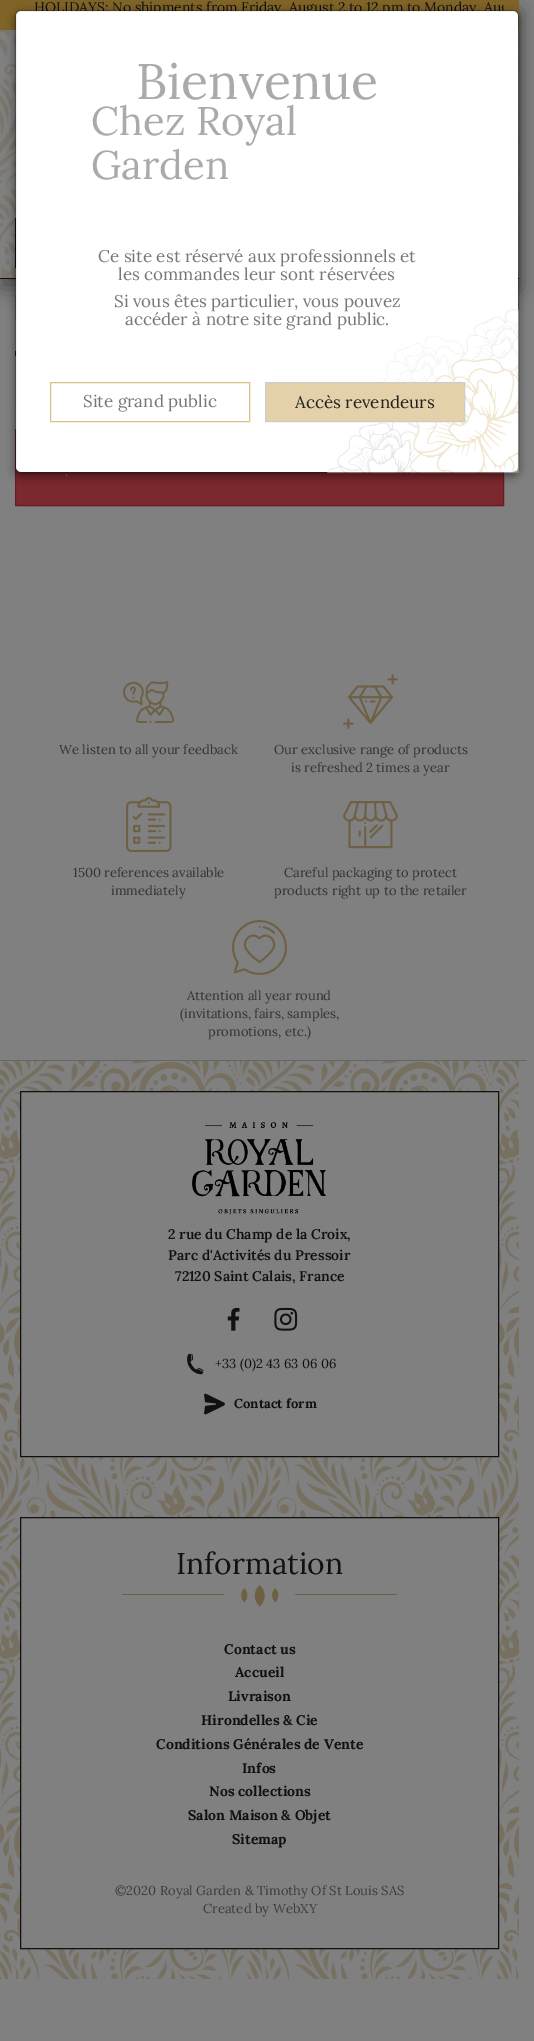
%!PS-Adobe-3.0
%%BoundingBox: 0 0 534 2041
%%LanguageLevel: 3
%%Pages: 1
%%EndComments
%%BeginProlog
/setink { 3 { 255 div 3 1 roll } repeat setrgbcolor } def
/usefont { [ exch dup neg 0 0 3 -1 roll 0 0 ] selectfont } def
/drawtext { setink usefont moveto show } def
/fillbox { setink rectfill } def
/setalpha { dup .setfillconstantalpha .setstrokeconstantalpha } def
/rrect { 5 dict begin { /r /h /w /y /x } { exch def } forall
  x r add y moveto x w add y 2 copy h add r arct x w add y h add x 1 index r arct
  x y h add x y r arct x y 2 copy exch w add exch r arct closepath end } def
/softshadow { 12 dict begin { /a /b /q /h /w /y /x } { exch def } forall gsave /was 0 def
  9 -2 -9 { dup b mul 4 div /e exch def 1 sub .425 mul 2.718 exch exp 1 add a .99 .min exch div /now exch def
    1 1 now sub 1 was sub div sub setalpha /was now def
    w h .min e 2 mul add 0 gt { x e sub y e sub w e 2 mul add h e 2 mul add
      q e add b .6 mul add w h .min 2 div e add .min 0 .max rrect fill } if } for grestore end } def
/drawimage { 5 dict begin { /h /w /y /x /name } { exch def } forall
  gsave x y translate w h scale
  w h 8 [w 0 0 h 0 0] name (r) file false 3 colorimage grestore end } def
%%EndProlog
%%BeginSetup
<< /PageSize [534 2041] /PageUsesTransparency true >> setpagedevice
%%EndSetup
%%Page: 1 1
0 .pushpdf14devicefilter
0 2041 translate 1 -1 scale
4 setmiterlimit
0 0 534 2041 128 128 128 fillbox
107 106 106 setink
15.5 294.5 51 26 2.5 rrect stroke
gsave
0 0 moveto 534 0 lineto 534 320 lineto 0 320 lineto closepath 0 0 moveto 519 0 lineto 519 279 lineto 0 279 lineto closepath eoclip newpath
17 17 17 setink
0 10 519 279 0 10 0.4 softshadow
grestore
0 278 519 1 17 17 17 fillbox
0 0 519 30 128 100 39 fillbox
(HOLIDAYS:) 34 12 /Lora-Regular 14 17 17 17 drawtext
gsave
15 0 489 30 rectclip
(No shipments from Friday, August 2 to 12 pm to Monday, Aug) 112 12 /Lora-Regular 14 17 17 17 drawtext
grestore
(assets/img1.rgb) 0 30 519 248 drawimage
15.5 218.5 488 49 rectstroke
15 356 1 53 123 123 123 fillbox
15 351 1 5 26 26 26 fillbox
16 467 487 38 122 41 46 fillbox
106 25 31 setink
15.5 429.5 488 76 rectstroke
(.) 65 476 /Lora-Regular 13 128 128 128 drawtext
(assets/img2.rgb) 0 1061 519 918 drawimage
0 0 0 setink
15 13 504 463 6 4.5 0.5 softshadow
255 255 255 setink
16 11 502 461 5 rrect fill
0.2 setalpha
0 0 0 setink
15.5 10.5 503 462 5.5 rrect stroke
1 setalpha
(Bienvenue) 136 99 /Lora-Regular 50 170 170 170 drawtext
(Chez Royal) 91 135 /Lora-Regular 40 170 170 170 drawtext
(Garden) 91 179 /Lora-Regular 40 170 170 170 drawtext
(Ce site est réservé aux professionnels et) 98 262 /Lora-Regular 17 119 119 119 drawtext
(les commandes leur sont réservées) 118 280 /Lora-Regular 17 119 119 119 drawtext
(assets/img3.rgb) 327 309 192 165 drawimage
(Si vous êtes particulier, vous pouvez) 114 307 /Lora-Regular 17 119 119 119 drawtext
(accéder à notre site grand public.) 125 325 /Lora-Regular 17 119 119 119 drawtext
219 192 137 setink
50.5 382.5 199 39 rectstroke
(Site grand public) 83 407 /Lora-Regular 17 119 119 119 drawtext
228 209 170 setink
265.5 382.5 moveto 464.5 382.5 lineto 464.5 421.5 lineto 265.5 421.5 lineto closepath gsave fill grestore
204 204 204 setink
stroke
(Accès revendeurs) 295 408 /Lora-Regular 17 34 34 34 drawtext
128 128 128 setink
20.5 1091.5 moveto 498.5 1091.5 lineto 498.5 1456.5 lineto 20.5 1456.5 lineto closepath gsave fill grestore
17 17 17 setink
stroke
(assets/img4.rgb) 192 1122 134 93 drawimage
(2 rue du Champ de la Croix,) 168 1239 /Lora-SemiBold 14 17 17 17 drawtext
(Parc d'Activités du Pressoir) 168 1260 /Lora-SemiBold 14 17 17 17 drawtext
(72120 Saint Calais, France) 175 1281 /Lora-SemiBold 14 17 17 17 drawtext
(assets/img5.rgb) 227 1307 13 24 drawimage
(assets/img6.rgb) 274 1307 24 24 drawimage
(assets/img7.rgb) 187 1353 17 22 drawimage
(+33 \(0\)2 43 63 06 06) 215 1368 /Lora-Regular 13 17 17 17 drawtext
(assets/img8.rgb) 204 1393 21 22 drawimage
(Contact form) 234 1408 /Lora-Bold 13 17 17 17 drawtext
128 128 128 setink
20.5 1517.5 moveto 498.5 1517.5 lineto 498.5 1948.5 lineto 20.5 1948.5 lineto closepath gsave fill grestore
17 17 17 setink
stroke
(Information) 176 1574 /Lora-Regular 30 17 17 17 drawtext
122 1594 275 1 110 96 69 fillbox
224 1594 71 1 128 128 128 fillbox
(assets/img9.rgb) 241 1585 38 22 drawimage
(Contact us) 224 1654 /Lora-Bold 14 17 17 17 drawtext
(Accueil) 235 1677 /Lora-Bold 14 17 17 17 drawtext
(Livraison) 228 1701 /Lora-Bold 14 17 17 17 drawtext
(Hirondelles & Cie) 201 1725 /Lora-Bold 14 17 17 17 drawtext
(Conditions Générales de Vente) 156 1749 /Lora-Bold 14 17 17 17 drawtext
(Infos) 242 1773 /Lora-Bold 14 17 17 17 drawtext
(Nos collections) 209 1796 /Lora-Bold 14 17 17 17 drawtext
(Salon Maison & Objet) 188 1820 /Lora-Bold 14 17 17 17 drawtext
(Sitemap) 232 1844 /Lora-Bold 14 17 17 17 drawtext
(©2020 Royal Garden & Timothy Of St Louis SAS) 115 1895 /Lora-Regular 13 60 60 60 drawtext
(Created by WebXY) 203 1913 /Lora-Regular 13 60 60 60 drawtext
0 1060 527 1 102 102 102 fillbox
(assets/img10.rgb) 123 681 51 42 drawimage
(We listen to all your feedback) 59 754 /Lora-Regular 13 51 51 51 drawtext
(assets/img11.rgb) 343 674 55 55 drawimage
(Our exclusive range of products) 274 754 /Lora-Regular 13 51 51 51 drawtext
(is refreshed 2 times a year) 291 772 /Lora-Regular 13 51 51 51 drawtext
(assets/img12.rgb) 126 797 46 55 drawimage
(1500 references available) 73 877 /Lora-Regular 13 51 51 51 drawtext
(immediately) 111 895 /Lora-Regular 13 51 51 51 drawtext
(assets/img13.rgb) 343 801 55 48 drawimage
(Careful packaging to protect) 284 877 /Lora-Regular 13 51 51 51 drawtext
(products right up to the retailer) 274 895 /Lora-Regular 13 51 51 51 drawtext
(assets/img14.rgb) 232 920 55 55 drawimage
(Attention all year round) 187 1000 /Lora-Regular 13 51 51 51 drawtext
(\(invitations, fairs, samples,) 180 1018 /Lora-Regular 13 51 51 51 drawtext
(promotions, etc.\)) 208 1036 /Lora-Regular 13 51 51 51 drawtext
.poppdf14devicefilter showpage
%%EOF
